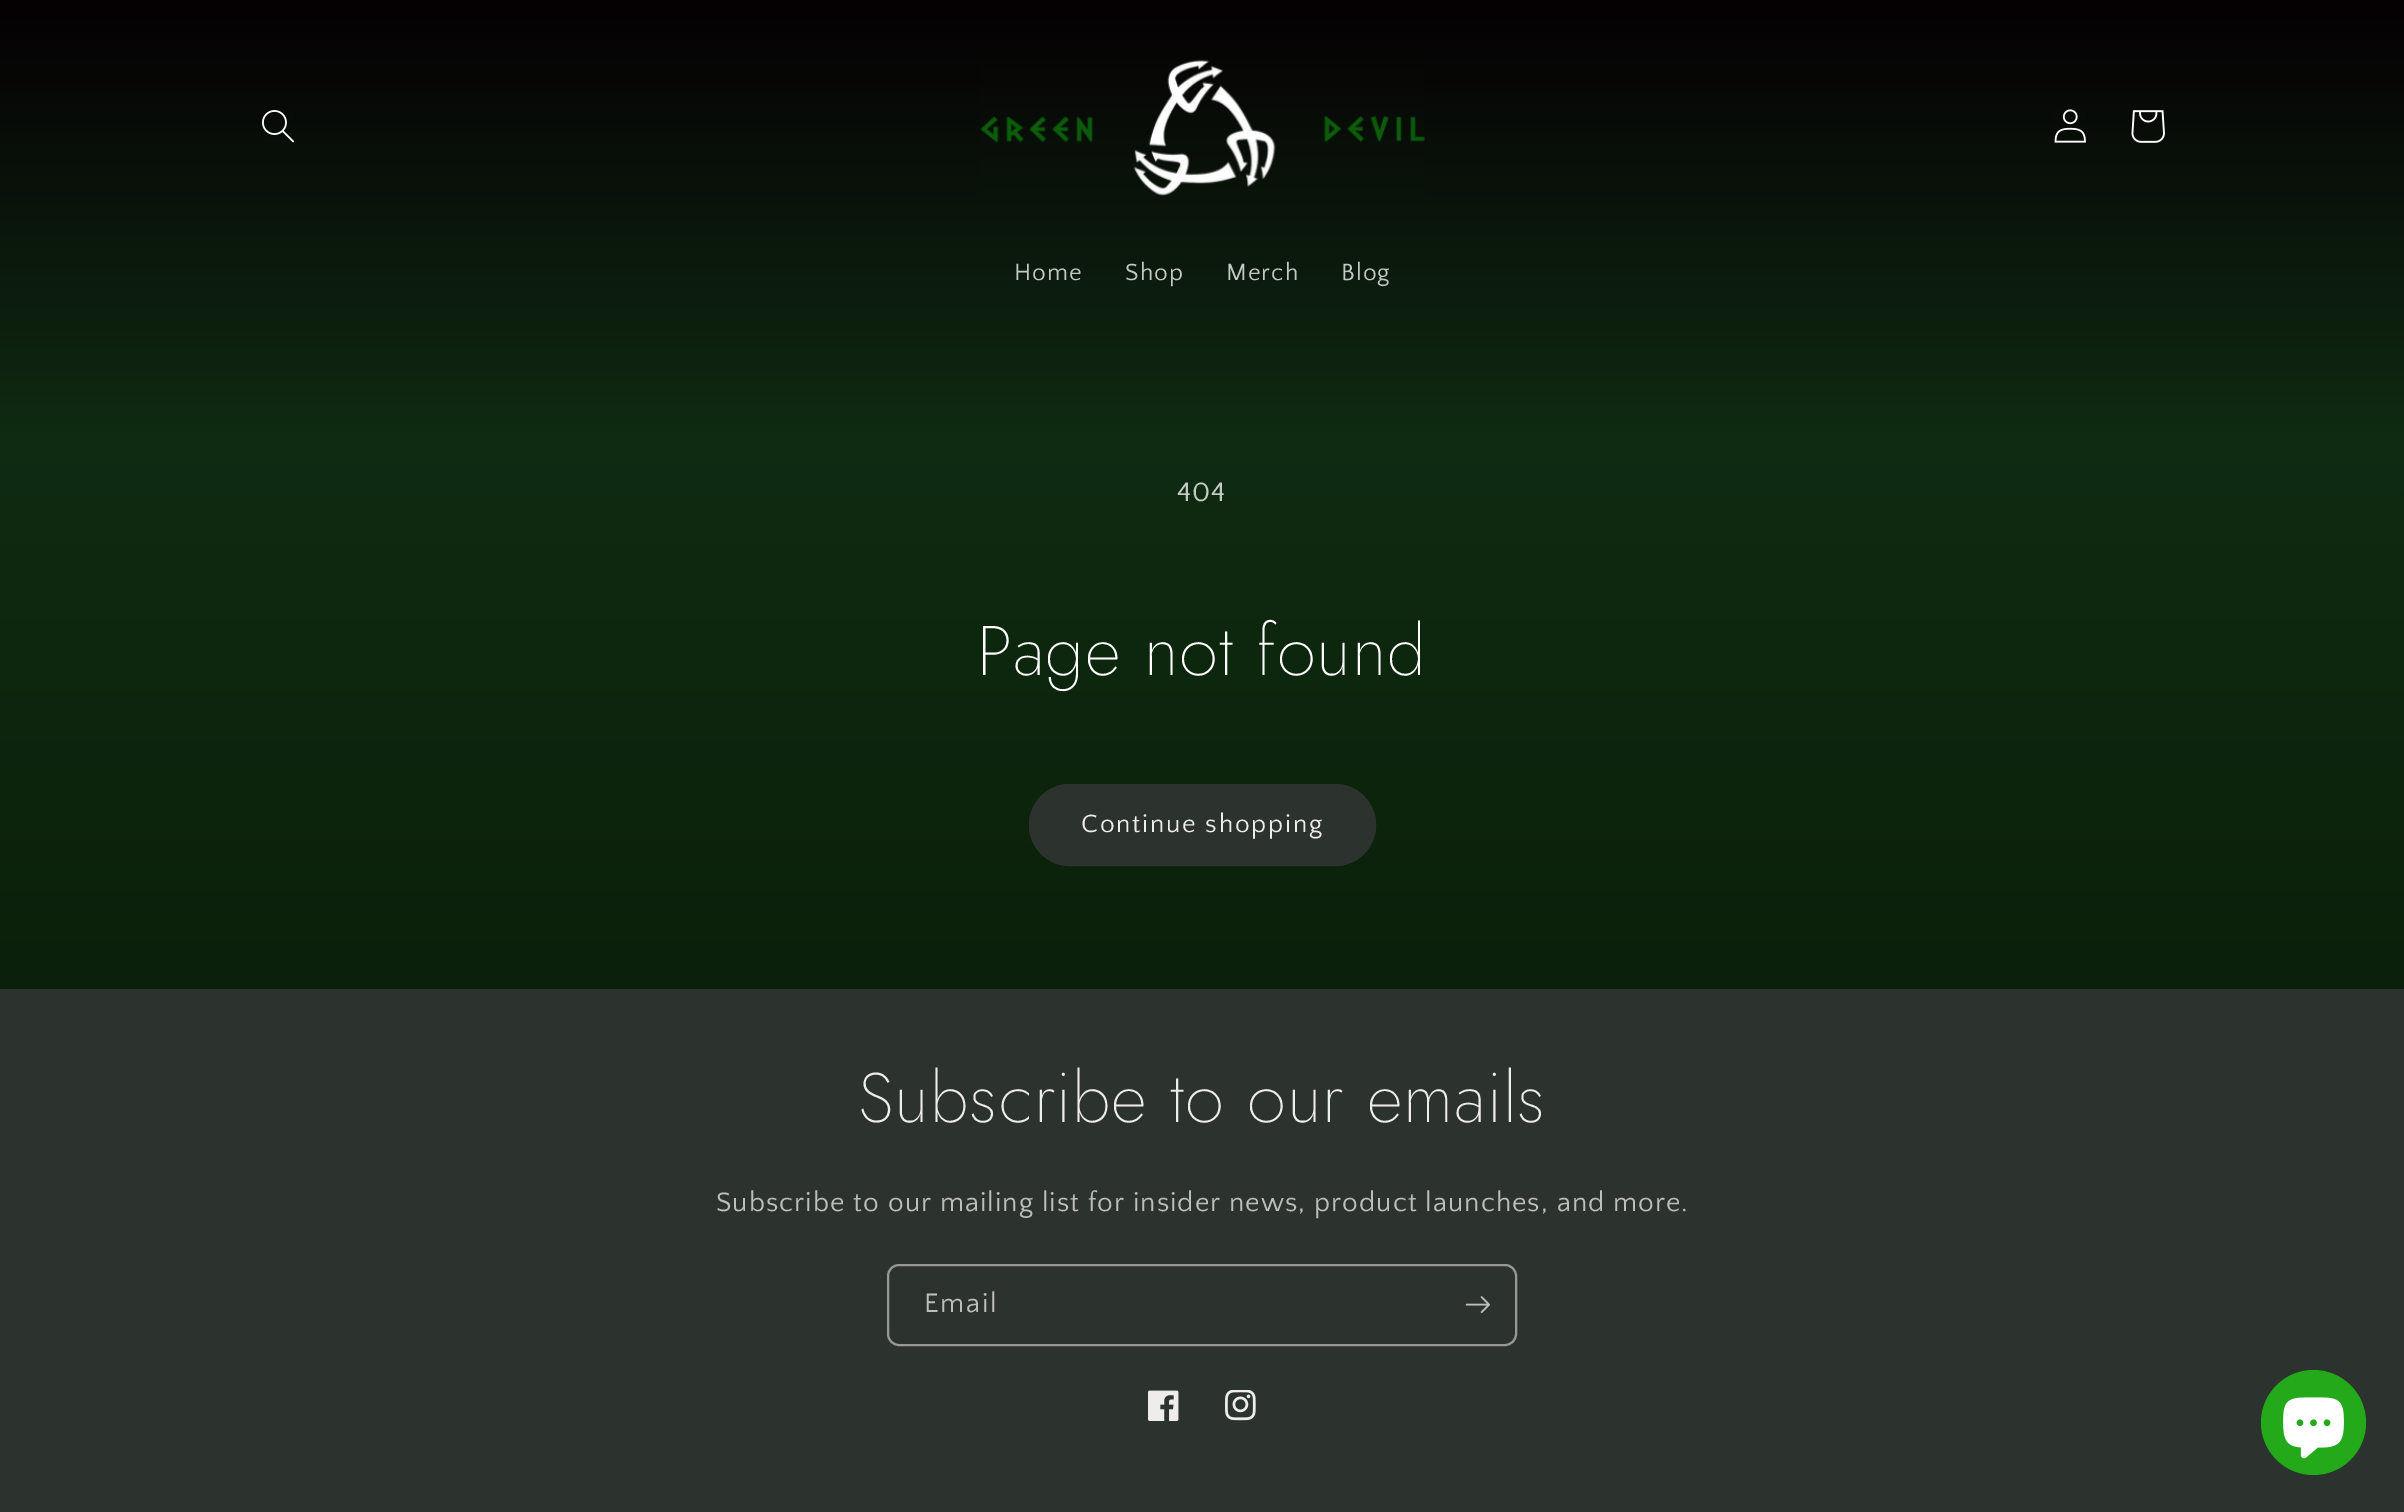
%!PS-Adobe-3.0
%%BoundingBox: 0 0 2404 1512
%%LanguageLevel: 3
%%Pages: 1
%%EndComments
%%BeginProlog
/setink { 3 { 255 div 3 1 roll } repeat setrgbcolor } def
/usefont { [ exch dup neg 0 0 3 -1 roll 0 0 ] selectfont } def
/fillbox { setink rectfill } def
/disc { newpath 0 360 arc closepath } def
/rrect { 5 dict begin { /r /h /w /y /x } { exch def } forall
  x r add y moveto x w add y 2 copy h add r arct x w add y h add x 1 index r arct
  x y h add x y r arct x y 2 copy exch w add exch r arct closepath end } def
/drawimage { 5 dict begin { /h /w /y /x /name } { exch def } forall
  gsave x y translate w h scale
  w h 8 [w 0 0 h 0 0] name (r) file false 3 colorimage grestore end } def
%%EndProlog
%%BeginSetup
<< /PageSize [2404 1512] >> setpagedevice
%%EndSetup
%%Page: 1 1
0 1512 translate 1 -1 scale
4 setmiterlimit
0 0 2404 1512 255 255 255 fillbox
gsave 0 0 moveto 2404 0 lineto 2404 989 lineto 0 989 lineto closepath clip newpath
<< /ShadingType 2 /ColorSpace /DeviceRGB /Coords [1202 0 1202 1512] /Extend [true true] /Function << /FunctionType 3 /Domain [0 1] /Functions [<< /FunctionType 2 /Domain [0 1] /C0 [0.02 0 0.012] /C1 [0.059 0.169 0.071] /N 1 >> << /FunctionType 2 /Domain [0 1] /C0 [0.059 0.169 0.071] /C1 [0.031 0.086 0.012] /N 1 >> << /FunctionType 2 /Domain [0 1] /C0 [0.031 0.086 0.012] /C1 [0.031 0.086 0.012] /N 1 >>] /Bounds [0.29 0.99] /Encode [0 1 0 1 0 1] >> >> shfill grestore
(assets/img1.rgb) 262 110 32 33 drawimage
(assets/img2.rgb) 980 59 445 137 drawimage
(assets/img3.rgb) 2054 109 32 34 drawimage
(assets/img4.rgb) 2131 110 34 33 drawimage
/QuattrocentoSans-Regular 24.5 usefont
195 202 196 setink
1014 280 moveto 1.05 0 (Home) ashow
1125 280 moveto 1.05 0 (Shop) ashow
1226 280 moveto 1.05 0 (Merch) ashow
1341 280 moveto 1.05 0 (Blog) ashow
/QuattrocentoSans-Regular 28 usefont
1177 501 moveto 1.05 0 (404) ashow
/Jost-ExtraLight 70 usefont
255 255 255 setink
977 675 moveto 1.05 0 (Page not found) ashow
44 51 47 setink
1029 784 347 82 41 rrect fill
2 setlinewidth
1030 785 345 80 40 rrect stroke
/QuattrocentoSans-Regular 26.25 usefont
239 236 236 setink
1081 832 moveto 1.75 0 (Continue shopping) ashow
0 989 2404 523 44 51 47 fillbox
(assets/img5.rgb) 1148 1390 31 31 drawimage
(assets/img6.rgb) 1225 1390 31 31 drawimage
/Jost-ExtraLight 70 usefont
239 236 236 setink
858 1122 moveto 1.05 0 (Subscribe to our emails) ashow
/QuattrocentoSans-Regular 28 usefont
190 190 189 setink
716 1211 moveto 1.05 0 (Subscribe to our mailing list for insider news, product launches, and more.) ashow
151 153 151 setink
888 1265 628 80 11 rrect stroke
190 190 189 setink
924 1312 moveto 1.75 0 (Email) ashow
(assets/img7.rgb) 1465 1296 25 17 drawimage
35 169 26 setink
2313.5 1422.5 52.5 disc fill
(assets/img8.rgb) 2283 1397 61 62 drawimage
showpage
%%EOF
